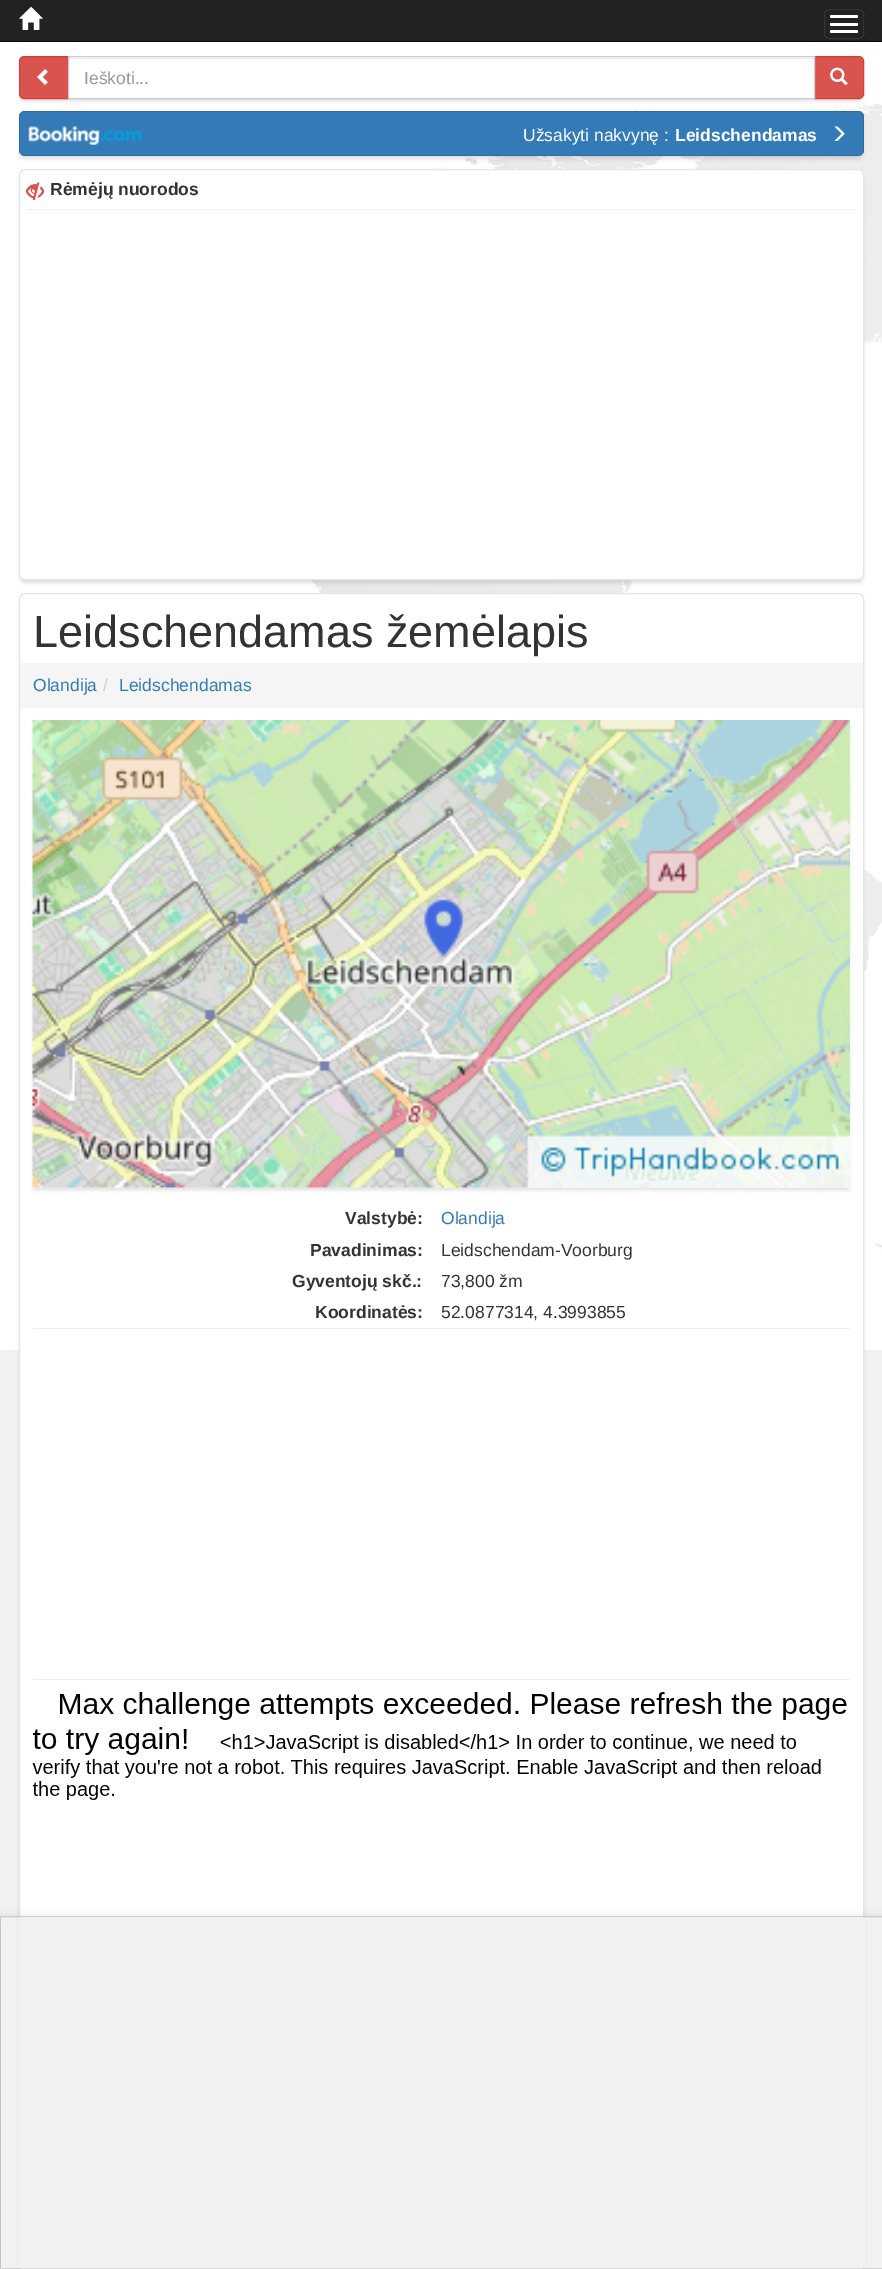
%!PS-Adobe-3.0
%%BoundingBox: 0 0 882 2269
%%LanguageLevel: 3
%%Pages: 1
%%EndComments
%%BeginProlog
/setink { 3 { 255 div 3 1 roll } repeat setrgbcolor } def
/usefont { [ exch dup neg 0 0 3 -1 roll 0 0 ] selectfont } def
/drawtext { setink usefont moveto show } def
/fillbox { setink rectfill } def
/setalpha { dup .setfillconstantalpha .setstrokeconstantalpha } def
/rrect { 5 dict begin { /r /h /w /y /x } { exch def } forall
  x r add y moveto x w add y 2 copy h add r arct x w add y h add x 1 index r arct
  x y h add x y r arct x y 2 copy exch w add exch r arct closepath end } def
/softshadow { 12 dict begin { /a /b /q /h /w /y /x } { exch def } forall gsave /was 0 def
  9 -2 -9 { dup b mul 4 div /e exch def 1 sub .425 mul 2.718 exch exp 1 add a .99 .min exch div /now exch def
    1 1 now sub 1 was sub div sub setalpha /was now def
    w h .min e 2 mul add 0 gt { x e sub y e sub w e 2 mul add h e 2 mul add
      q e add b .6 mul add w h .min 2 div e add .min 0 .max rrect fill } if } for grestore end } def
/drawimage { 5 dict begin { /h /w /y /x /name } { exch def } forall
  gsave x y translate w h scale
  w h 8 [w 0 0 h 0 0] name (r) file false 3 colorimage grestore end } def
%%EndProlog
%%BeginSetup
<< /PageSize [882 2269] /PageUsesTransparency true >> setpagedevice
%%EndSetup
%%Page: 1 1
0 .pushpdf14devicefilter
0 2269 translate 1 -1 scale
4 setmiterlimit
0 0 882 2269 241 241 241 fillbox
0 0 882 41 34 34 34 fillbox
0 41 882 1 8 8 8 fillbox
(assets/img1.rgb) 19 6 24 24 drawimage
51 51 51 setink
824.5 9.5 39 29 4.5 rrect stroke
255 255 255 setink
830 15 28 3 1.5 rrect fill
830 23 28 3 1.5 rrect fill
830 30 28 3 1.5 rrect fill
(assets/img2.rgb) 0 42 882 1308 drawimage
0 0 0 setink
20 61 843 40 5 2 0.12 softshadow
217 83 79 setink
24 56.5 moveto 68.5 56.5 lineto 68.5 98.5 lineto 24 98.5 lineto 21.5 98.5 19.5 96.5 19.5 94 curveto 19.5 61 lineto 19.5 58.5 21.5 56.5 24 56.5 curveto closepath gsave fill grestore
212 63 58 setink
stroke
(assets/img3.rgb) 37 69 11 16 drawimage
69 58 745 40 255 255 255 fillbox
69 58 745 1 236 236 236 fillbox
217 83 79 setink
814.5 56.5 moveto 859 56.5 lineto 861.5 56.5 863.5 58.5 863.5 61 curveto 863.5 94 lineto 863.5 96.5 861.5 98.5 859 98.5 curveto 814.5 98.5 lineto closepath gsave fill grestore
212 63 58 setink
stroke
204 204 204 setink
68.5 56.5 746 42 rectstroke
(Ieškoti...) 84 84 /LiberationSans-Regular 17.5 153 153 153 drawtext
(assets/img4.rgb) 830 67 18 19 drawimage
0 0 0 setink
20 116 843 43 5 2 0.12 softshadow
51 122 183 setink
19 111 845 45 6 rrect fill
(assets/img5.rgb) 28 126 114 19 drawimage
46 109 164 setink
24 112 moveto 859 112 lineto 861 112 863 114 863 116 curveto 863 153 lineto 864 152 864 151 864 150 curveto 864 117 lineto 864 114 861 111 858 111 curveto 25 111 lineto 22 111 19 114 19 117 curveto 19 150 lineto 19 151 19 152 20 153 curveto 20 116 lineto 20 114 22 112 24 112 curveto closepath 858 156 moveto 861 155 lineto 22 155 lineto 25 156 lineto closepath eofill
(Užsakyti nakvynę :) 523 141 /LiberationSans-Regular 17.5 255 255 255 drawtext
(Leidschendamas) 675 141 /LiberationSans-Bold 17.5 255 255 255 drawtext
(assets/img6.rgb) 834 126 11 15 drawimage
0 0 0 setink
20 174 843 409 5 2 0.12 softshadow
255 255 255 setink
19.5 169.5 844 410 5.5 rrect gsave fill grestore
229 229 229 setink
stroke
(assets/img7.rgb) 25 182 20 18 drawimage
(Rėmėjų nuorodos) 50 195 /LiberationSans-Bold 17.5 51 51 51 drawtext
26 209 830 1 238 238 238 fillbox
0 0 0 setink
20 598 843 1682 5 2 0.12 softshadow
255 255 255 setink
19.5 593.5 844 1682 5.5 rrect gsave fill grestore
229 229 229 setink
stroke
(Leidschendamas žemėlapis) 33 647 /LiberationSans-Regular 45 51 51 51 drawtext
20 663 843 45 245 245 245 fillbox
(Olandija) 33 691 /LiberationSans-Regular 17.5 51 122 183 drawtext
(/) 103 691 /LiberationSans-Regular 17.5 204 204 204 drawtext
(Leidschendamas) 119 691 /LiberationSans-Regular 17.5 51 122 183 drawtext
0 0 0 setink
34 725 815 465 0 2 0.12 softshadow
(assets/img8.rgb) 32 720 818 468 drawimage
(Valstybė:) 345 1224 /LiberationSans-Bold 17.5 51 51 51 drawtext
(Olandija) 441 1224 /LiberationSans-Regular 17.5 51 122 183 drawtext
(Pavadinimas:) 310 1256 /LiberationSans-Bold 17.5 51 51 51 drawtext
(Leidschendam-Voorburg) 441 1256 /LiberationSans-Regular 17.5 51 51 51 drawtext
(Gyventojų skč.:) 292 1287 /LiberationSans-Bold 17.5 51 51 51 drawtext
(73,800 žm) 441 1287 /LiberationSans-Regular 17.5 51 51 51 drawtext
(Koordinatės:) 315 1318 /LiberationSans-Bold 17.5 51 51 51 drawtext
(52.0877314, 4.3993855) 441 1318 /LiberationSans-Regular 17.5 51 51 51 drawtext
33 1328 817 1 238 238 238 fillbox
33 1679 817 1 238 238 238 fillbox
(assets/img9.rgb) 32 1692 815 108 drawimage
17 1918 849 350 241 241 241 fillbox
0 1916 882 1 216 216 216 fillbox
0 1916 1 352 216 216 216 fillbox
gsave
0 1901 moveto 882 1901 lineto 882 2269 lineto 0 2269 lineto closepath 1 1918 moveto 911 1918 lineto 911 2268 lineto 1 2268 lineto closepath eoclip newpath
0 0 0 setink
1 1920 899 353 0 6 0.18 softshadow
grestore
.poppdf14devicefilter showpage
%%EOF
